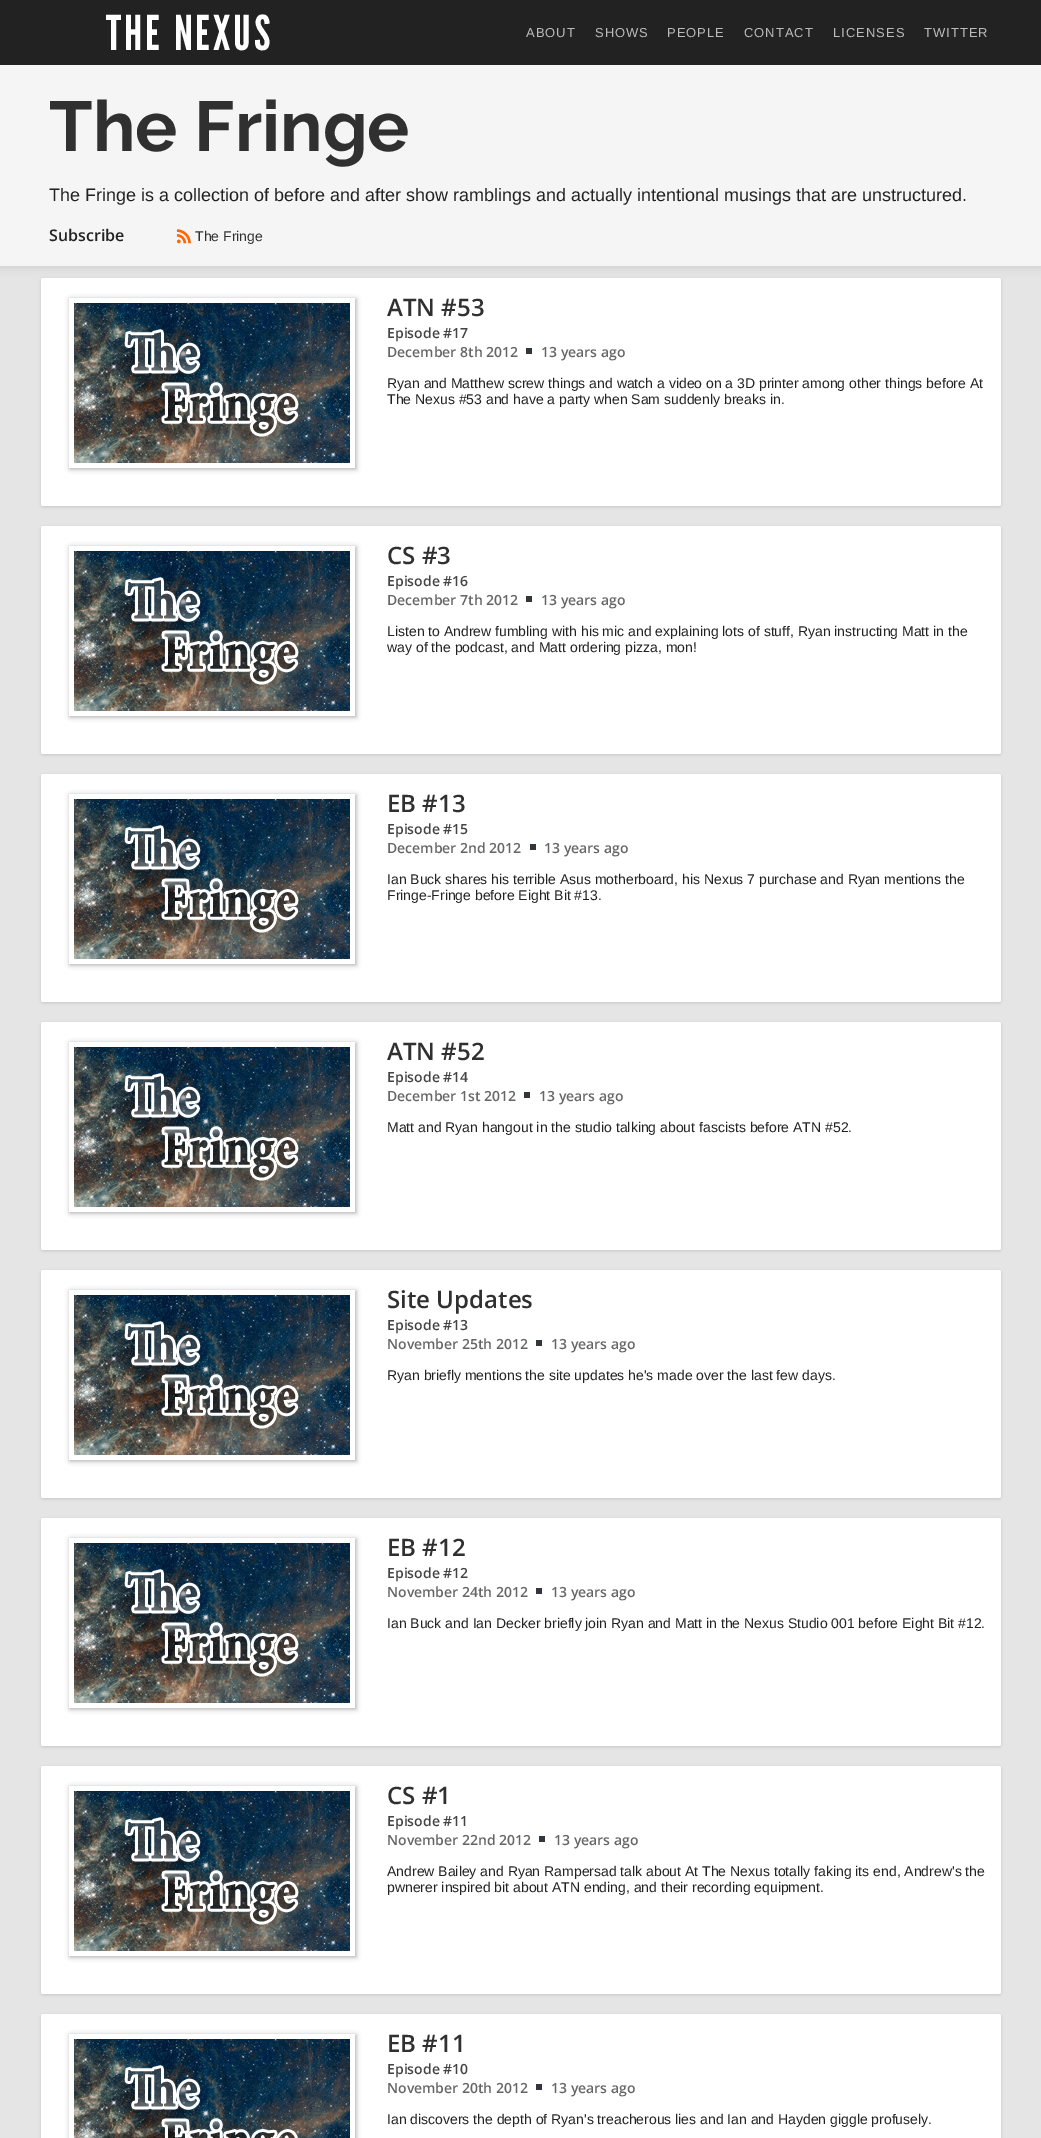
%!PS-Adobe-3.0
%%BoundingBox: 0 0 1041 2138
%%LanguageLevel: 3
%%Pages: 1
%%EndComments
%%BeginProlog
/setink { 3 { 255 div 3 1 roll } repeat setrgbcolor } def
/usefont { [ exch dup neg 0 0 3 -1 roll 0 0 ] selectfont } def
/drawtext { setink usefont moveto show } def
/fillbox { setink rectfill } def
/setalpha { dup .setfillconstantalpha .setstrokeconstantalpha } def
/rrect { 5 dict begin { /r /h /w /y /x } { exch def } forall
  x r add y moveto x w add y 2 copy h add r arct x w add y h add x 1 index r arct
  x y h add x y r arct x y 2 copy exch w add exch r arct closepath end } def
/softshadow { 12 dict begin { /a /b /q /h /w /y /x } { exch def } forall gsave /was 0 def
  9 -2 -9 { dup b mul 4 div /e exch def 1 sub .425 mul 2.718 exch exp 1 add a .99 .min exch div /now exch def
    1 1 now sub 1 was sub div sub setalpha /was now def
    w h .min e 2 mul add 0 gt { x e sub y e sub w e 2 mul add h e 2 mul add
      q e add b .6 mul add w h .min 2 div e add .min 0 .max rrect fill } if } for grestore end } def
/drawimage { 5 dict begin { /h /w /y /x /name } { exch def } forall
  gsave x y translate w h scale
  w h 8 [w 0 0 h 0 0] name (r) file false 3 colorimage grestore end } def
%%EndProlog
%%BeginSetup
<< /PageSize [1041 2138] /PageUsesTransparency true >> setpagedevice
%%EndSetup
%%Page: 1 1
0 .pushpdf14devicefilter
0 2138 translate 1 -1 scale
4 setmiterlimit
0 0 1041 2138 34 34 34 fillbox
0 266 1041 1872 229 229 229 fillbox
50 50 50 setink
0 66 1041 201 0 5 0.15 softshadow
/LeagueGothic-Regular 48 usefont
255 255 255 setink
106 50 moveto 3 0 (THE NEXUS) ashow
/LiberationSans-Regular 13 usefont
187 187 187 setink
526 37 moveto 1 0 (ABOUT) ashow
595 37 moveto 1 0 (SHOWS) ashow
667 37 moveto 1 0 (PEOPLE) ashow
744 37 moveto 1 0 (CONTACT) ashow
833 37 moveto 1 0 (LICENSES) ashow
924 37 moveto 1 0 (TWITTER) ashow
0 65 1041 201 245 245 245 fillbox
(The Fringe) 49 151 /Raleway-Bold 70.5 48 48 48 drawtext
(The Fringe is a collection of before and after show ramblings and actually intentional musings that are unstructured.) 49 201 /LiberationSans-Regular 18 34 34 34 drawtext
(Subscribe) 49 241 /OpenSans-SemiBold 16 34 34 34 drawtext
(assets/img1.rgb) 176 229 15 15 drawimage
(The Fringe) 195 241 /LiberationSans-Regular 14 48 48 48 drawtext
0 0 0 setink
41 279 960 228 2 1.5 0.13 softshadow
255 255 255 setink
41 278 960 228 2 rrect fill
gsave
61 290 moveto 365 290 lineto 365 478 lineto 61 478 lineto closepath 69 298 moveto 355 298 lineto 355 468 lineto 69 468 lineto closepath eoclip newpath
170 170 170 setink
70 299 286 170 0 2.5 1 softshadow
grestore
(assets/img2.rgb) 74 303 276 160 drawimage
(ATN #53) 387 316 /OpenSans-SemiBold 24 48 48 48 drawtext
(Episode #17) 387 338 /OpenSans-SemiBold 14 68 68 68 drawtext
(December 8th 2012) 387 357 /OpenSans-SemiBold 14 102 102 102 drawtext
526 348 6 6 49 55 61 fillbox
(13 years ago) 541 357 /OpenSans-SemiBold 14 102 102 102 drawtext
(Ryan and Matthew screw things and watch a video on a 3D printer among other things before At) 387 388 /LiberationSans-Regular 14 34 34 34 drawtext
(The Nexus #53 and have a party when Sam suddenly breaks in.) 387 404 /LiberationSans-Regular 14 34 34 34 drawtext
0 0 0 setink
41 527 960 228 2 1.5 0.13 softshadow
255 255 255 setink
41 526 960 228 2 rrect fill
gsave
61 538 moveto 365 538 lineto 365 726 lineto 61 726 lineto closepath 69 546 moveto 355 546 lineto 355 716 lineto 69 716 lineto closepath eoclip newpath
170 170 170 setink
70 547 286 170 0 2.5 1 softshadow
grestore
(assets/img2.rgb) 74 551 276 160 drawimage
(CS #3) 387 564 /OpenSans-SemiBold 24 48 48 48 drawtext
(Episode #16) 387 586 /OpenSans-SemiBold 14 68 68 68 drawtext
(December 7th 2012) 387 605 /OpenSans-SemiBold 14 102 102 102 drawtext
526 596 6 6 49 55 61 fillbox
(13 years ago) 541 605 /OpenSans-SemiBold 14 102 102 102 drawtext
(Listen to Andrew fumbling with his mic and explaining lots of stuff, Ryan instructing Matt in the) 387 636 /LiberationSans-Regular 14 34 34 34 drawtext
(way of the podcast, and Matt ordering pizza, mon!) 387 652 /LiberationSans-Regular 14 34 34 34 drawtext
0 0 0 setink
41 775 960 228 2 1.5 0.13 softshadow
255 255 255 setink
41 774 960 228 2 rrect fill
gsave
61 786 moveto 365 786 lineto 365 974 lineto 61 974 lineto closepath 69 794 moveto 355 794 lineto 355 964 lineto 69 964 lineto closepath eoclip newpath
170 170 170 setink
70 795 286 170 0 2.5 1 softshadow
grestore
(assets/img2.rgb) 74 799 276 160 drawimage
(EB #13) 387 812 /OpenSans-SemiBold 24 48 48 48 drawtext
(Episode #15) 387 834 /OpenSans-SemiBold 14 68 68 68 drawtext
(December 2nd 2012) 387 853 /OpenSans-SemiBold 14 102 102 102 drawtext
530 844 6 6 49 55 61 fillbox
(13 years ago) 544 853 /OpenSans-SemiBold 14 102 102 102 drawtext
(Ian Buck shares his terrible Asus motherboard, his Nexus 7 purchase and Ryan mentions the) 387 884 /LiberationSans-Regular 14 34 34 34 drawtext
(Fringe-Fringe before Eight Bit #13.) 387 900 /LiberationSans-Regular 14 34 34 34 drawtext
0 0 0 setink
41 1023 960 228 2 1.5 0.13 softshadow
255 255 255 setink
41 1022 960 228 2 rrect fill
gsave
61 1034 moveto 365 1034 lineto 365 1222 lineto 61 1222 lineto closepath 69 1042 moveto 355 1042 lineto 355 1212 lineto 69 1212 lineto closepath eoclip newpath
170 170 170 setink
70 1043 286 170 0 2.5 1 softshadow
grestore
(assets/img2.rgb) 74 1047 276 160 drawimage
(ATN #52) 387 1060 /OpenSans-SemiBold 24 48 48 48 drawtext
(Episode #14) 387 1082 /OpenSans-SemiBold 14 68 68 68 drawtext
(December 1st 2012) 387 1101 /OpenSans-SemiBold 14 102 102 102 drawtext
524 1092 6 6 49 55 61 fillbox
(13 years ago) 539 1101 /OpenSans-SemiBold 14 102 102 102 drawtext
(Matt and Ryan hangout in the studio talking about fascists before ATN #52.) 387 1132 /LiberationSans-Regular 14 34 34 34 drawtext
0 0 0 setink
41 1271 960 228 2 1.5 0.13 softshadow
255 255 255 setink
41 1270 960 228 2 rrect fill
gsave
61 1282 moveto 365 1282 lineto 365 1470 lineto 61 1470 lineto closepath 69 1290 moveto 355 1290 lineto 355 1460 lineto 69 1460 lineto closepath eoclip newpath
170 170 170 setink
70 1291 286 170 0 2.5 1 softshadow
grestore
(assets/img2.rgb) 74 1295 276 160 drawimage
(Site Updates) 387 1308 /OpenSans-SemiBold 24 48 48 48 drawtext
(Episode #13) 387 1330 /OpenSans-SemiBold 14 68 68 68 drawtext
(November 25th 2012) 387 1349 /OpenSans-SemiBold 14 102 102 102 drawtext
536 1340 6 6 49 55 61 fillbox
(13 years ago) 551 1349 /OpenSans-SemiBold 14 102 102 102 drawtext
(Ryan briefly mentions the site updates he's made over the last few days.) 387 1380 /LiberationSans-Regular 14 34 34 34 drawtext
0 0 0 setink
41 1519 960 228 2 1.5 0.13 softshadow
255 255 255 setink
41 1518 960 228 2 rrect fill
gsave
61 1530 moveto 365 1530 lineto 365 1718 lineto 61 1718 lineto closepath 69 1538 moveto 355 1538 lineto 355 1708 lineto 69 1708 lineto closepath eoclip newpath
170 170 170 setink
70 1539 286 170 0 2.5 1 softshadow
grestore
(assets/img2.rgb) 74 1543 276 160 drawimage
(EB #12) 387 1556 /OpenSans-SemiBold 24 48 48 48 drawtext
(Episode #12) 387 1578 /OpenSans-SemiBold 14 68 68 68 drawtext
(November 24th 2012) 387 1597 /OpenSans-SemiBold 14 102 102 102 drawtext
536 1588 6 6 49 55 61 fillbox
(13 years ago) 551 1597 /OpenSans-SemiBold 14 102 102 102 drawtext
(Ian Buck and Ian Decker briefly join Ryan and Matt in the Nexus Studio 001 before Eight Bit #12.) 387 1628 /LiberationSans-Regular 14 34 34 34 drawtext
0 0 0 setink
41 1767 960 228 2 1.5 0.13 softshadow
255 255 255 setink
41 1766 960 228 2 rrect fill
gsave
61 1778 moveto 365 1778 lineto 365 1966 lineto 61 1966 lineto closepath 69 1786 moveto 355 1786 lineto 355 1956 lineto 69 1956 lineto closepath eoclip newpath
170 170 170 setink
70 1787 286 170 0 2.5 1 softshadow
grestore
(assets/img2.rgb) 74 1791 276 160 drawimage
(CS #1) 387 1804 /OpenSans-SemiBold 24 48 48 48 drawtext
(Episode #11) 387 1826 /OpenSans-SemiBold 14 68 68 68 drawtext
(November 22nd 2012) 387 1845 /OpenSans-SemiBold 14 102 102 102 drawtext
539 1836 6 6 49 55 61 fillbox
(13 years ago) 554 1845 /OpenSans-SemiBold 14 102 102 102 drawtext
(Andrew Bailey and Ryan Rampersad talk about At The Nexus totally faking its end, Andrew's the) 387 1876 /LiberationSans-Regular 14 34 34 34 drawtext
(pwnerer inspired bit about ATN ending, and their recording equipment.) 387 1892 /LiberationSans-Regular 14 34 34 34 drawtext
0 0 0 setink
41 2015 960 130 2 1.5 0.13 softshadow
255 255 255 setink
41 2014 960 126 2 rrect fill
gsave
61 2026 moveto 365 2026 lineto 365 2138 lineto 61 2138 lineto closepath 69 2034 moveto 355 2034 lineto 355 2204 lineto 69 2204 lineto closepath eoclip newpath
170 170 170 setink
70 2035 286 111 0 2.5 1 softshadow
grestore
(assets/img3.rgb) 74 2039 276 99 drawimage
(EB #11) 387 2052 /OpenSans-SemiBold 24 48 48 48 drawtext
(Episode #10) 387 2074 /OpenSans-SemiBold 14 68 68 68 drawtext
(November 20th 2012) 387 2093 /OpenSans-SemiBold 14 102 102 102 drawtext
536 2084 6 6 49 55 61 fillbox
(13 years ago) 551 2093 /OpenSans-SemiBold 14 102 102 102 drawtext
(Ian discovers the depth of Ryan's treacherous lies and Ian and Hayden giggle profusely.) 387 2124 /LiberationSans-Regular 14 34 34 34 drawtext
.poppdf14devicefilter showpage
%%EOF
